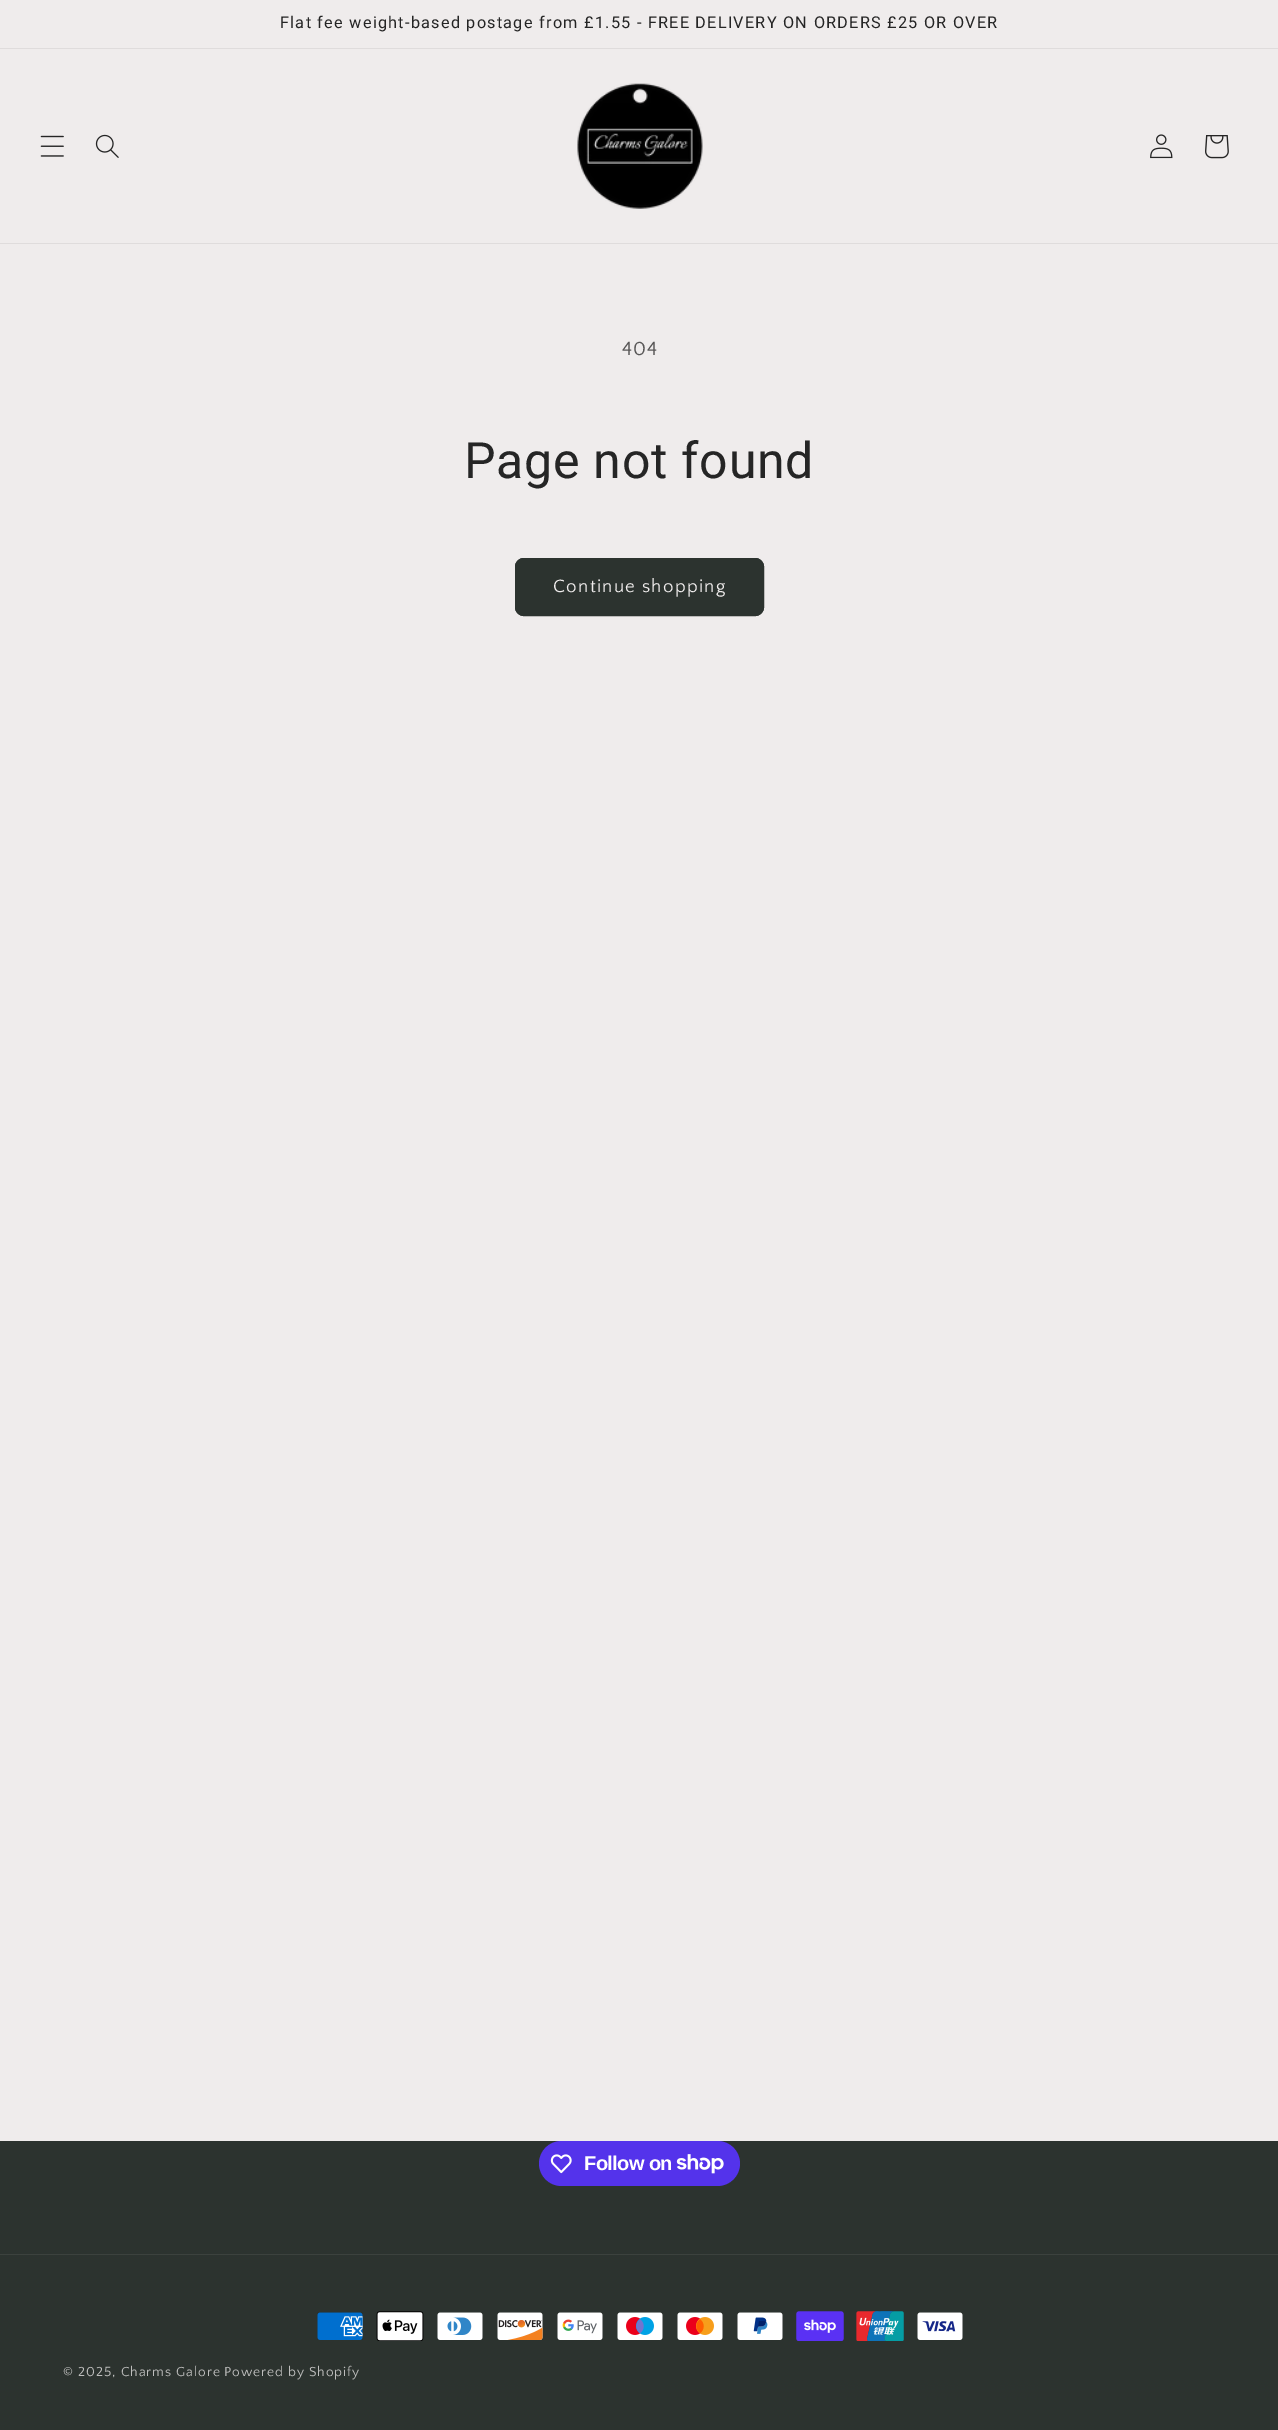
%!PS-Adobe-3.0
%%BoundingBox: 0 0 1278 2430
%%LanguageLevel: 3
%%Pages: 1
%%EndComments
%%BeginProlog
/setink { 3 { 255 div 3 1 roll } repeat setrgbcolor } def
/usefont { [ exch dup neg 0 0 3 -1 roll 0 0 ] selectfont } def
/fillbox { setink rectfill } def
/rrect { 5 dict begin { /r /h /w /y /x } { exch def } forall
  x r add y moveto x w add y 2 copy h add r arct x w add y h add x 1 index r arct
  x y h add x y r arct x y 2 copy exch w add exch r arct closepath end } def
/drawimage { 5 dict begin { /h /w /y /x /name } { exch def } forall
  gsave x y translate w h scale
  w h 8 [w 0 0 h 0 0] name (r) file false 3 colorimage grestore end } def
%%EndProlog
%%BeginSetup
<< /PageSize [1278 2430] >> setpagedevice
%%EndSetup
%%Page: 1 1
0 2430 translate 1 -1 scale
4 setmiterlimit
0 0 1278 2430 239 236 236 fillbox
0 48 1278 1 223 220 220 fillbox
/Roboto-Regular 16.25 usefont
37 37 37 setink
280 28 moveto 1.25 0 (Flat fee weight-based postage from £1.55 - FREE DELIVERY ON ORDERS £25 OR OVER) ashow
0 243 1278 1 223 220 220 fillbox
(assets/img1.rgb) 40 135 24 22 drawimage
(assets/img2.rgb) 95 134 24 24 drawimage
(assets/img3.rgb) 577 83 126 126 drawimage
(assets/img4.rgb) 1150 134 23 25 drawimage
(assets/img5.rgb) 1205 135 24 24 drawimage
/QuattrocentoSans-Regular 20 usefont
88 87 87 setink
622 355 moveto 0.75 0 (404) ashow
/Roboto-Regular 50 usefont
37 37 37 setink
464 478 moveto 0.75 0 (Page not found) ashow
44 51 47 setink
515 558 249 58 9 rrect fill
515.5 558.5 248 57 8.5 rrect stroke
/QuattrocentoSans-Regular 18.75 usefont
239 236 236 setink
553 592 moveto 1.25 0 (Continue shopping) ashow
0 2141 1278 289 44 51 47 fillbox
84 51 235 setink
539 2141 201 45 22.5 rrect fill
(assets/img6.rgb) 550 2154 22 20 drawimage
/LiberationSans-Bold 20 usefont
255 255 255 setink
584 2170 moveto -0.6 0 (Follow on) ashow
(assets/img7.rgb) 676 2154 48 20 drawimage
0 2254 1278 1 60 66 62 fillbox
(assets/img8.rgb) 317 2312 46 28 drawimage
(assets/img9.rgb) 376 2311 48 30 drawimage
(assets/img10.rgb) 437 2312 46 28 drawimage
(assets/img11.rgb) 497 2312 46 28 drawimage
(assets/img12.rgb) 557 2312 46 28 drawimage
(assets/img13.rgb) 617 2312 46 28 drawimage
(assets/img14.rgb) 677 2312 46 28 drawimage
(assets/img15.rgb) 737 2312 46 28 drawimage
(assets/img16.rgb) 796 2311 48 30 drawimage
(assets/img17.rgb) 856 2311 48 30 drawimage
(assets/img18.rgb) 917 2312 46 28 drawimage
/QuattrocentoSans-Regular 13.75 usefont
190 190 189 setink
63 2376 moveto 0.9 0 (© 2025, Charms Galore) ashow
224 2376 moveto 0.9 0 (Powered by Shopify) ashow
showpage
%%EOF
